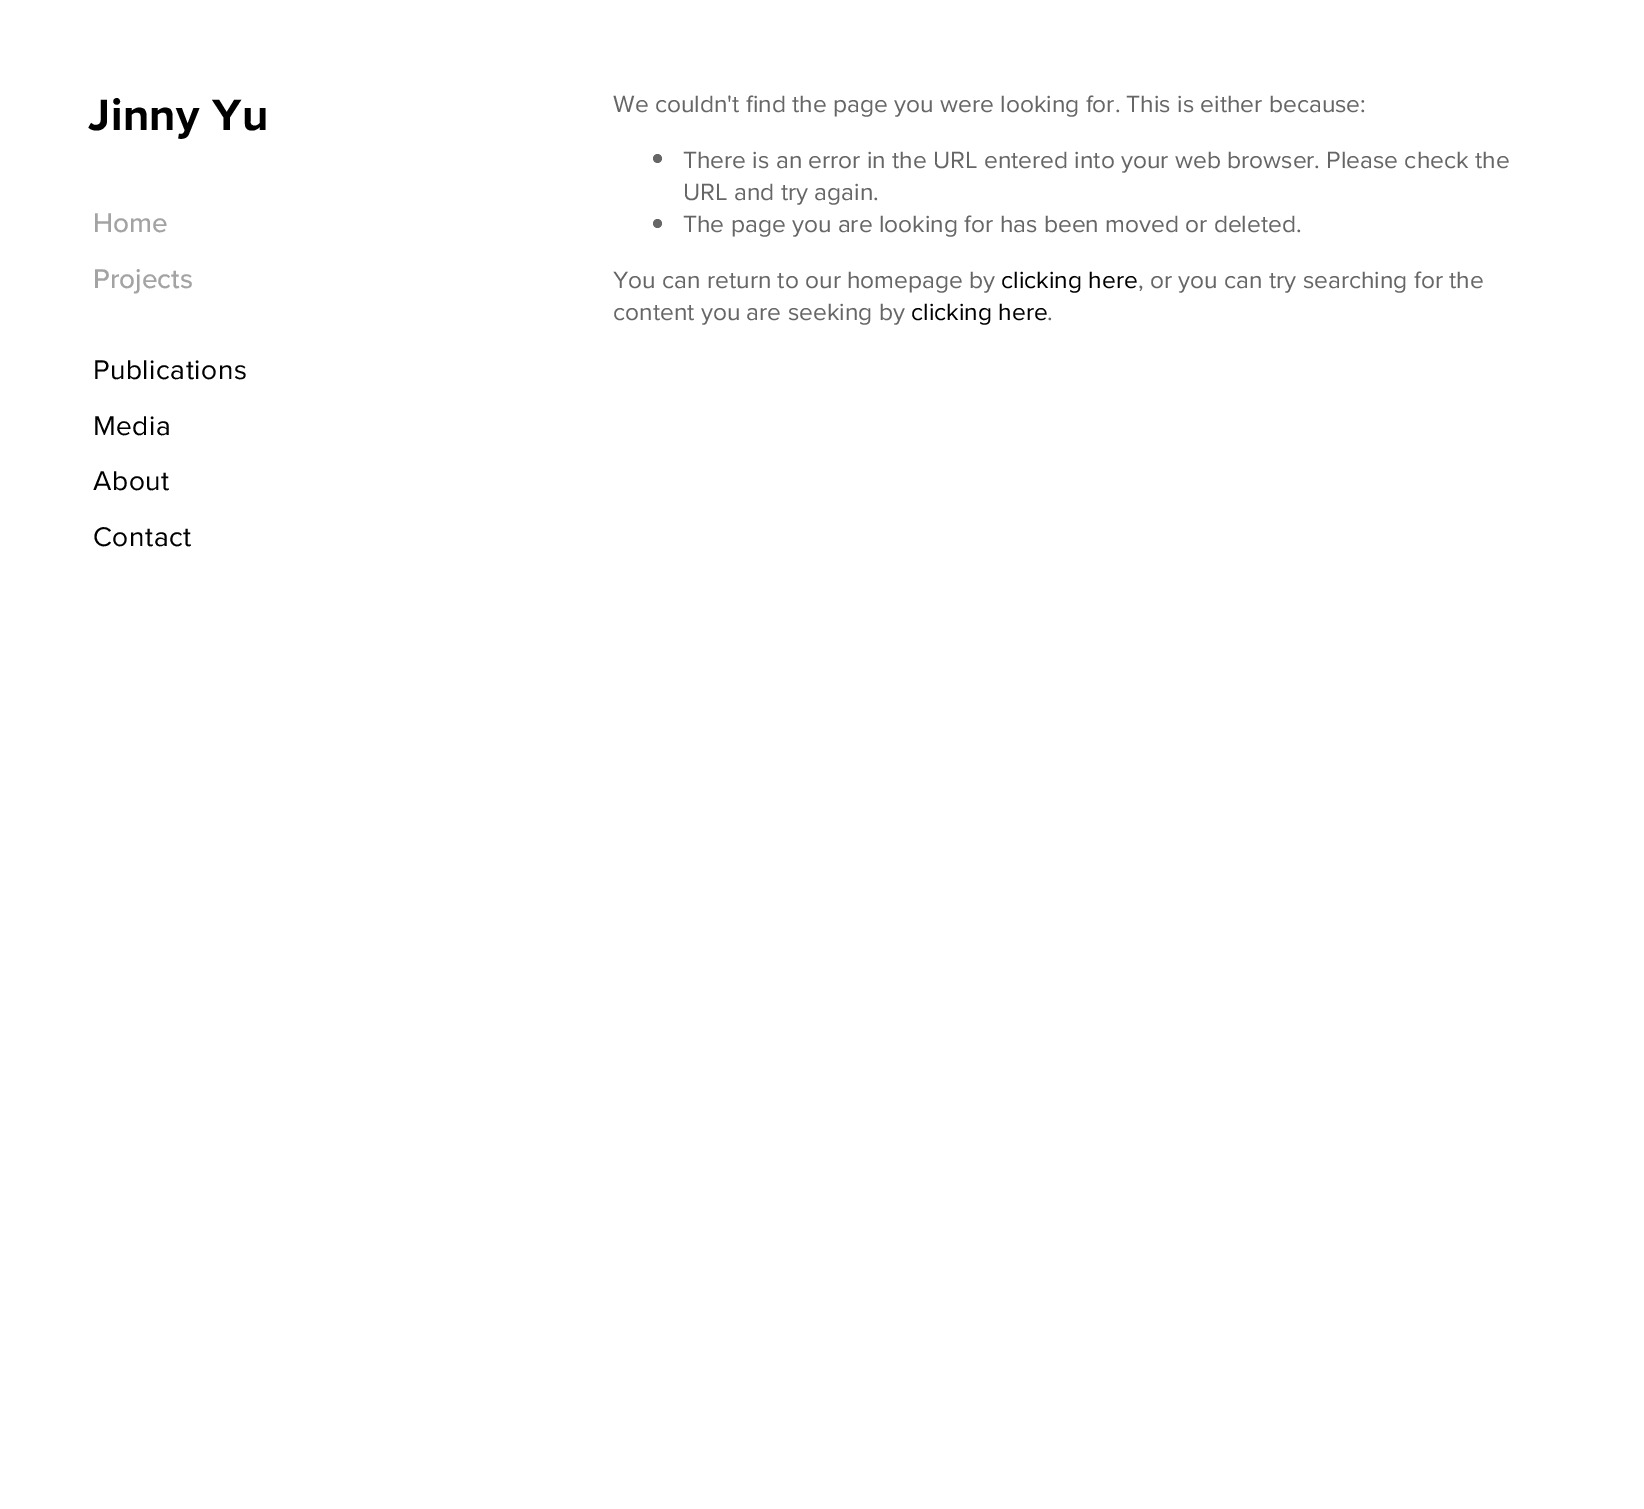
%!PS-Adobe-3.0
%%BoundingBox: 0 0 1644 1509
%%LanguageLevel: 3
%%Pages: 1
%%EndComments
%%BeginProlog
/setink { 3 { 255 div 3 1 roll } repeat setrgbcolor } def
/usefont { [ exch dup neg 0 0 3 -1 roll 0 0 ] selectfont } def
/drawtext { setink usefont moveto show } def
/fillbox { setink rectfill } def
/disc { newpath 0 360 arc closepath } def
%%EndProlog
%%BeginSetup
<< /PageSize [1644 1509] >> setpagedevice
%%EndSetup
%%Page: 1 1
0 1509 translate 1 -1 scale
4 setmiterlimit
0 0 1644 1509 255 255 255 fillbox
/ProximaNova-Bold 45.5 usefont
0 0 0 setink
88 130 moveto 0.5 0 (Jinny Yu) ashow
(Home) 93 232 /ProximaNova-Medium 28 163 163 163 drawtext
(Projects) 93 288 /ProximaNova-Medium 28 163 163 163 drawtext
/ProximaNova-Regular 28 usefont
0 0 0 setink
93 379 moveto 0.5 0 (Publications) ashow
93 435 moveto 0.5 0 (Media) ashow
93 490 moveto 0.5 0 (About) ashow
93 546 moveto 0.5 0 (Contact) ashow
(We couldn't find the page you were looking for. This is either because:) 613 112 /ProximaNova-Regular 24.5 102 102 102 drawtext
657.5 158.5 4.5 disc fill
(There is an error in the URL entered into your web browser. Please check the) 683 168 /ProximaNova-Regular 24.5 102 102 102 drawtext
(URL and try again.) 683 200 /ProximaNova-Regular 24.5 102 102 102 drawtext
657.5 223.5 4.5 disc fill
(The page you are looking for has been moved or deleted.) 683 232 /ProximaNova-Regular 24.5 102 102 102 drawtext
(You can return to our homepage by) 613 288 /ProximaNova-Regular 24.5 102 102 102 drawtext
(clicking here) 1001 288 /ProximaNova-Regular 24.5 0 0 0 drawtext
(, or you can try searching for the) 1138 288 /ProximaNova-Regular 24.5 102 102 102 drawtext
(content you are seeking by) 613 320 /ProximaNova-Regular 24.5 102 102 102 drawtext
(clicking here) 911 320 /ProximaNova-Regular 24.5 0 0 0 drawtext
(.) 1047 320 /ProximaNova-Regular 24.5 102 102 102 drawtext
showpage
%%EOF
